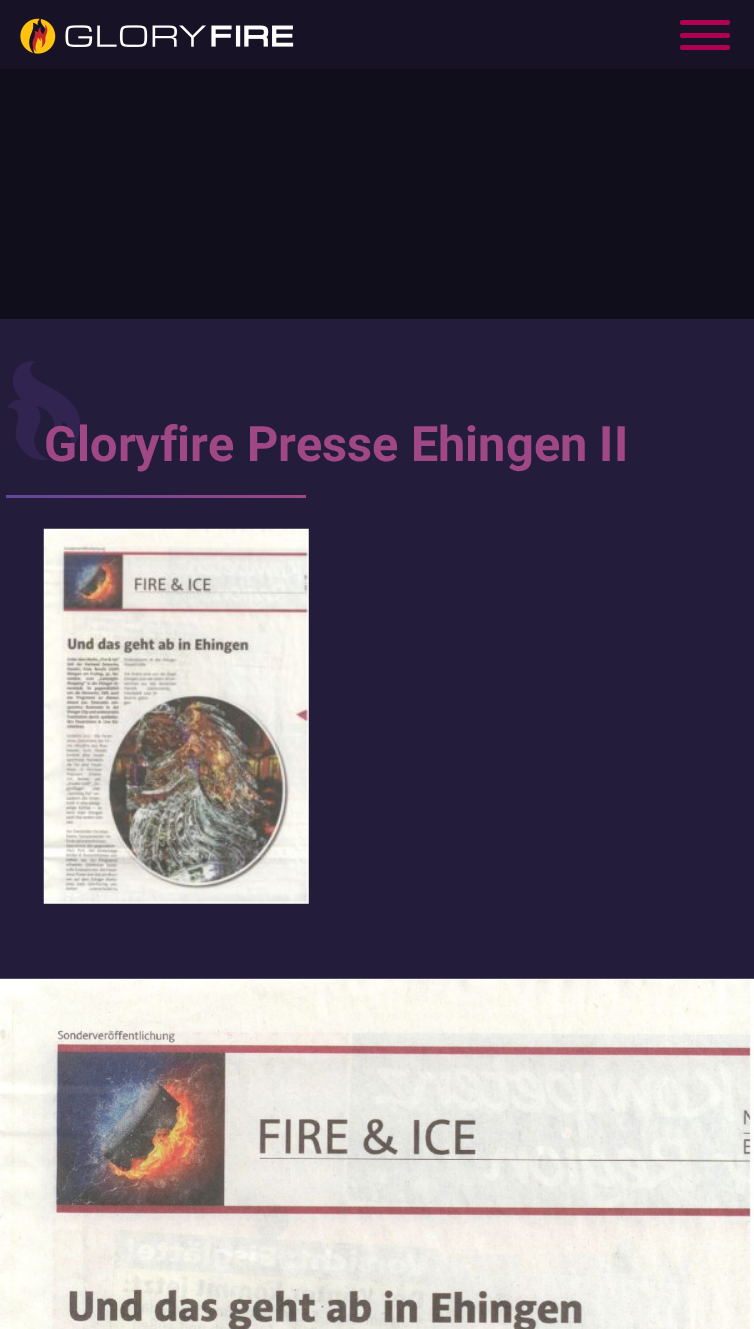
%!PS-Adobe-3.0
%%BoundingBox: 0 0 754 1329
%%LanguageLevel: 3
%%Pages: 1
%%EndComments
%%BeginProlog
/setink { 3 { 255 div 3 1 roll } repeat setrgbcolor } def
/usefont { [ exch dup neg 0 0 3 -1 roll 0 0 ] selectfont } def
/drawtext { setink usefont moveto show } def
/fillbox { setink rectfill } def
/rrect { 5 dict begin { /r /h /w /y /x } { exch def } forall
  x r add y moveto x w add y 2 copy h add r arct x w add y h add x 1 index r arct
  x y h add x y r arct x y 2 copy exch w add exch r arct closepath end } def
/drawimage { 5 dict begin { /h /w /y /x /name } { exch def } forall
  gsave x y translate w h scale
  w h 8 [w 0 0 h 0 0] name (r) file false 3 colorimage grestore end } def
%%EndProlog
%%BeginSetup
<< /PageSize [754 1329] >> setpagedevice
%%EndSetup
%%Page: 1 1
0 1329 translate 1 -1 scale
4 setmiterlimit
0 0 754 1329 17 14 27 fillbox
0 0 754 69 23 18 37 fillbox
(assets/img1.rgb) 20 18 274 36 drawimage
176 0 83 setink
680 33 50 5 2.5 rrect fill
680 20 50 5 2.5 rrect fill
680 45 50 5 2.5 rrect fill
0 319 754 660 35 28 58 fillbox
(assets/img2.rgb) 7 361 74 99 drawimage
(Gloryfire Presse Ehingen II) 44 461 /Roboto-Bold 48.75 160 71 134 drawtext
gsave 6 495 moveto 306 495 lineto 306 498 lineto 6 498 lineto closepath clip newpath
<< /ShadingType 2 /ColorSpace /DeviceRGB /Coords [6.2 496 306 496] /Extend [true true] /Function << /FunctionType 2 /Domain [0 1] /C0 [0.376 0.275 0.608] /C1 [0.627 0.278 0.525] /N 1 >> >> shfill grestore
(assets/img3.rgb) 43 528 266 376 drawimage
(assets/img4.rgb) 0 978 754 351 drawimage
showpage
%%EOF
